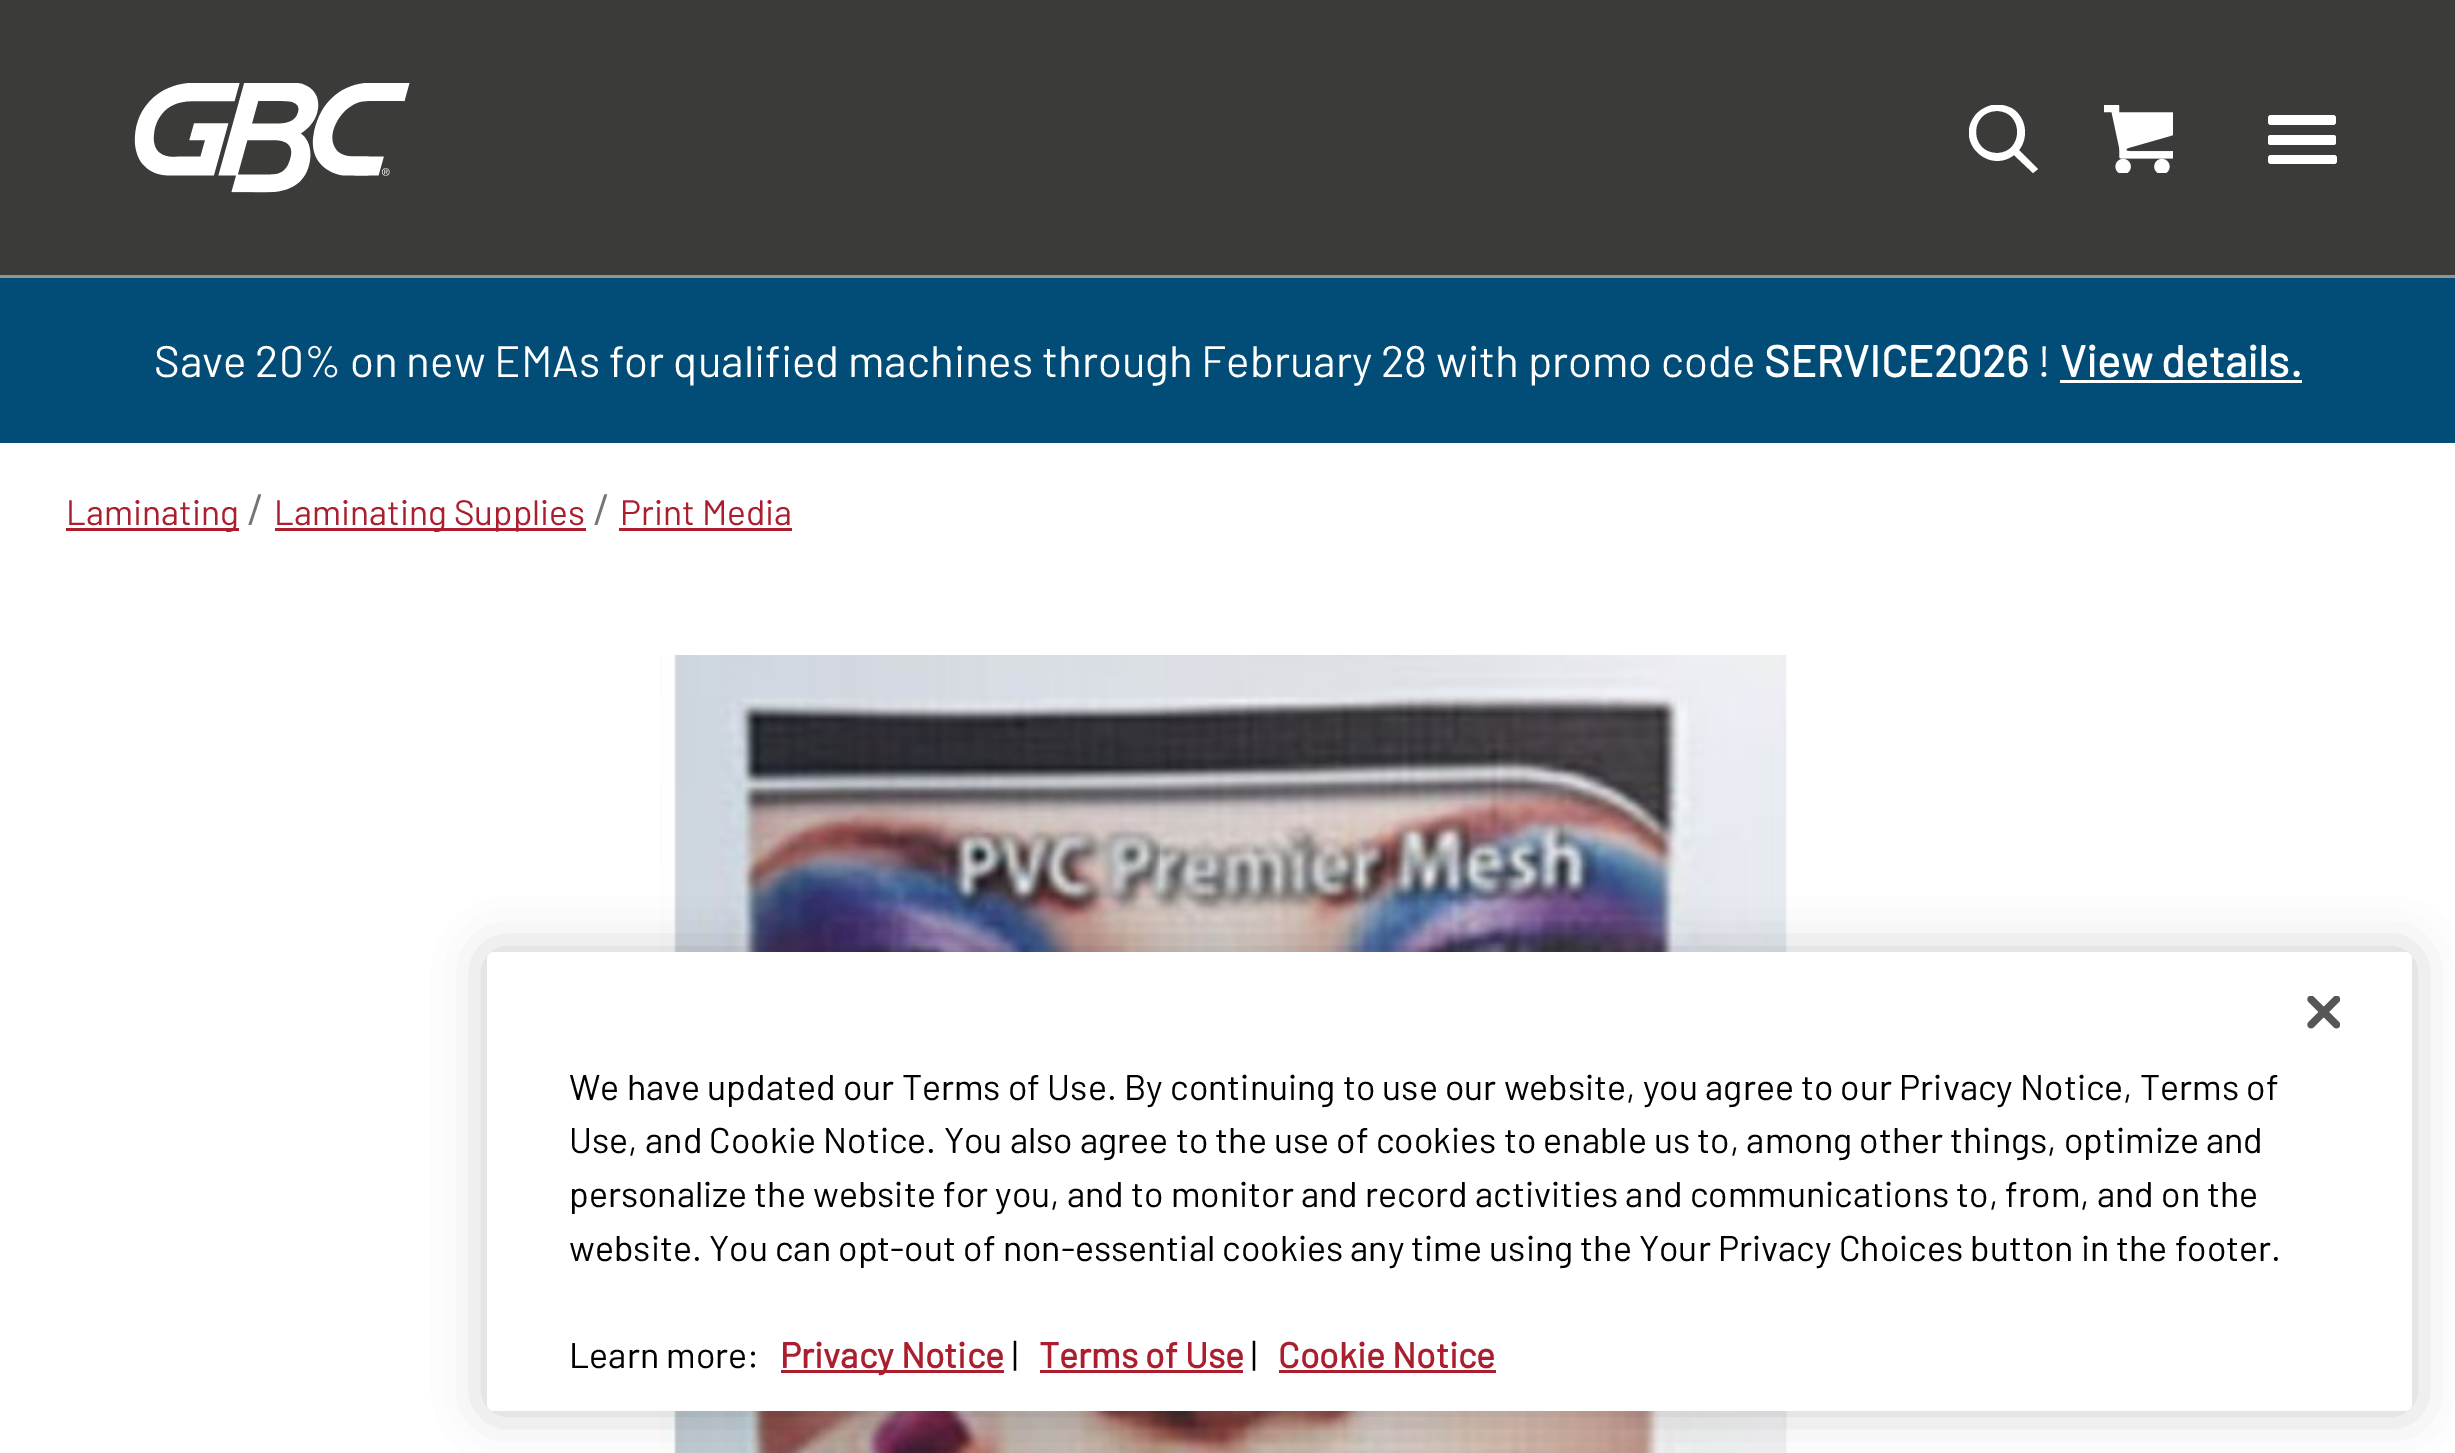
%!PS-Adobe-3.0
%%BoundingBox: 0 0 2455 1453
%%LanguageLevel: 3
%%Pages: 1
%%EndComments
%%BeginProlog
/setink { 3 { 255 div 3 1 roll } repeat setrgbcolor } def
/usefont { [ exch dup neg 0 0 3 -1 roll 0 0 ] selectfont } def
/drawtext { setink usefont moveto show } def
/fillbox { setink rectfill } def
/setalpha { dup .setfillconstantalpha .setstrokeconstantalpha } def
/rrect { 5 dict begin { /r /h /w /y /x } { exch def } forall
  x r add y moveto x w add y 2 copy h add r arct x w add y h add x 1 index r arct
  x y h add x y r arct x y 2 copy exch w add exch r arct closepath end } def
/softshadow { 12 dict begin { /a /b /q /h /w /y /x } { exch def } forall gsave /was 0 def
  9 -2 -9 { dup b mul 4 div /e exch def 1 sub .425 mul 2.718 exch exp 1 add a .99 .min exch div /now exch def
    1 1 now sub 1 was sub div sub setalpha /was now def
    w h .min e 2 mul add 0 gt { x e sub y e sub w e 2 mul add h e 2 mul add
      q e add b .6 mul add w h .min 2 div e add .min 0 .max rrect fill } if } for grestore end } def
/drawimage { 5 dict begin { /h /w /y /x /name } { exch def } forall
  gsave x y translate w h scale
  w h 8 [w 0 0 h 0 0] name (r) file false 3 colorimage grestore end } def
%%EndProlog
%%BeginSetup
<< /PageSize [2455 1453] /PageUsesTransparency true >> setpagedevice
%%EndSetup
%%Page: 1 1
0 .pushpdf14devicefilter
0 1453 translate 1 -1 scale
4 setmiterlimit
0 0 2455 1453 255 255 255 fillbox
0 0 2455 275 59 59 58 fillbox
0 275 2455 3 148 148 148 fillbox
(assets/img1.rgb) 134 83 276 110 drawimage
gsave
1969 105 69 68 rectclip
255 255 255 setink
2033 173 moveto 2014 155 lineto 1989 174 1956 143 1974 117 curveto 1977 112 1983 108 1989 106 curveto 1997 103 2006 105 2013 109 curveto 2026 118 2029 137 2019 150 curveto 2038 169 lineto closepath 1997 153 moveto 2024 153 2024 111 1997 111 curveto 1969 111 1969 153 1997 153 curveto closepath eofill
grestore
(assets/img2.rgb) 2104 105 69 68 drawimage
255 255 255 setink
2268 115 68 10 3 rrect fill
2268 135 68 10 2.5 rrect fill
2268 155 69 9 3 rrect fill
0 278 2455 165 2 77 119 fillbox
(Save 20% on new EMAs for qualified machines through February 28 with promo code) 154 377 /Barlow-Regular 44 255 255 255 drawtext
(SERVICE2026) 1764 377 /Barlow-Bold 44 255 255 255 drawtext
(!) 2037 377 /Barlow-Regular 44 255 255 255 drawtext
(View details.) 2060 377 /Barlow-Bold 44 255 255 255 drawtext
2060 380 242 3 255 255 255 fillbox
66 528 173 3 170 30 46 fillbox
(Laminating) 66 525 /Barlow-Regular 35.25 170 30 46 drawtext
(/) 247 525 /Barlow-Regular 44 117 117 117 drawtext
275 528 311 3 170 30 46 fillbox
(Laminating Supplies) 274 525 /Barlow-Regular 35.25 170 30 46 drawtext
(/) 593 525 /Barlow-Regular 44 117 117 117 drawtext
(Print Media) 620 525 /Barlow-Regular 35.25 170 30 46 drawtext
619 528 173 3 170 30 46 fillbox
(assets/img3.rgb) 660 655 1127 798 drawimage
0 0 0 setink
487 952 1925 459 7 25 0.2 softshadow
255 255 255 setink
487 952 1925 459 7 rrect fill
(assets/img4.rgb) 2307 996 33 33 drawimage
(We have updated our Terms of Use.) 569 1100 /Barlow-Regular 35.75 0 0 0 drawtext
(By continuing to use our website, you agree to our Privacy Notice, Terms of) 1124 1100 /Barlow-Regular 35.75 0 0 0 drawtext
(Use, and Cookie Notice. You also agree to the use of cookies to enable us to, among other things, optimize and) 569 1153 /Barlow-Regular 35.75 0 0 0 drawtext
(personalize the website for you, and to monitor and record activities and communications to, from, and on the) 569 1207 /Barlow-Regular 35.75 0 0 0 drawtext
(website. You can opt-out of non-essential cookies any time using the Your Privacy Choices button in the footer.) 569 1261 /Barlow-Regular 35.75 0 0 0 drawtext
(Learn more:) 569 1368 /Barlow-Regular 35.75 0 0 0 drawtext
781 1370 223 3 170 30 46 fillbox
(Privacy Notice) 780 1368 /Barlow-Bold 35.75 170 30 46 drawtext
(|) 1012 1368 /Barlow-Regular 35.75 0 0 0 drawtext
(Terms of Use) 1039 1368 /Barlow-Bold 35.75 170 30 46 drawtext
1040 1370 203 3 170 30 46 fillbox
(|) 1251 1368 /Barlow-Regular 35.75 0 0 0 drawtext
(Cookie Notice) 1278 1368 /Barlow-Bold 35.75 170 30 46 drawtext
1279 1370 217 3 170 30 46 fillbox
.poppdf14devicefilter showpage
%%EOF
